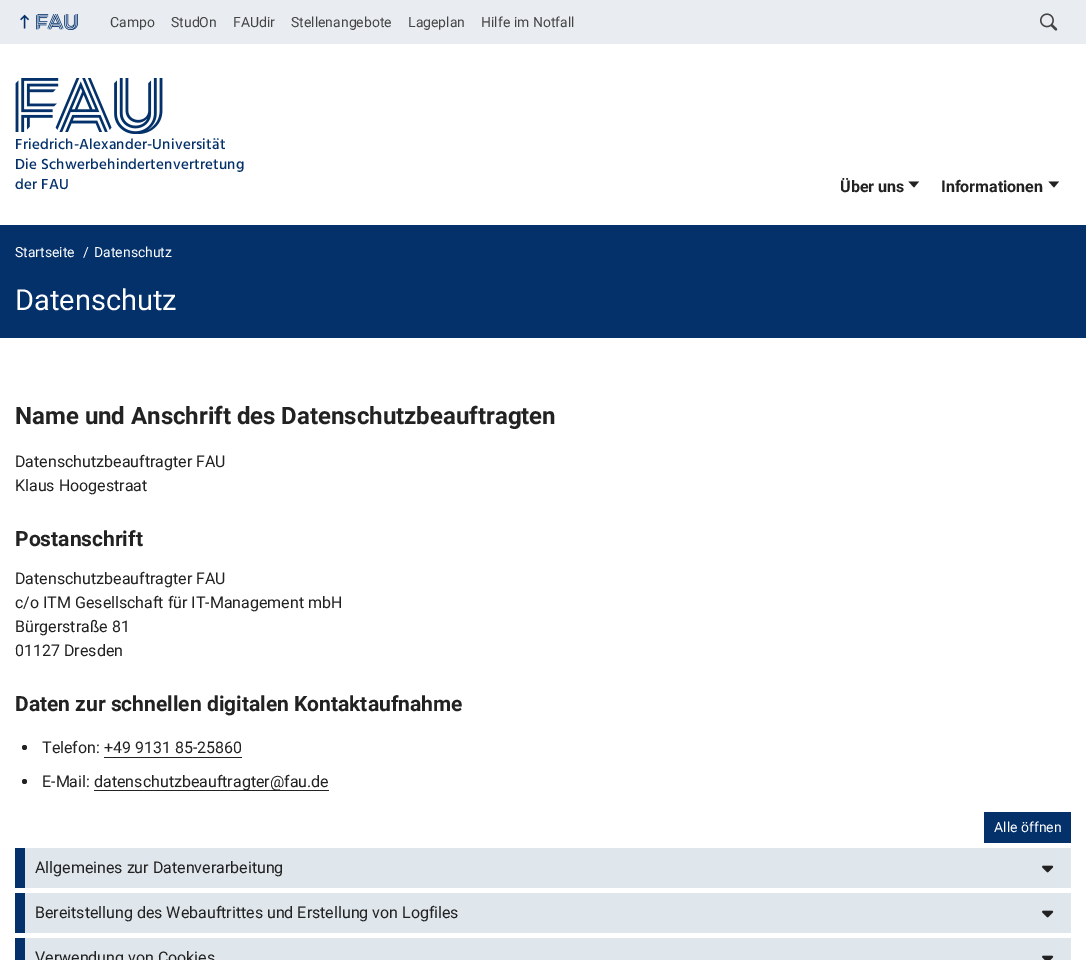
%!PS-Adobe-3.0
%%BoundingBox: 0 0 1086 960
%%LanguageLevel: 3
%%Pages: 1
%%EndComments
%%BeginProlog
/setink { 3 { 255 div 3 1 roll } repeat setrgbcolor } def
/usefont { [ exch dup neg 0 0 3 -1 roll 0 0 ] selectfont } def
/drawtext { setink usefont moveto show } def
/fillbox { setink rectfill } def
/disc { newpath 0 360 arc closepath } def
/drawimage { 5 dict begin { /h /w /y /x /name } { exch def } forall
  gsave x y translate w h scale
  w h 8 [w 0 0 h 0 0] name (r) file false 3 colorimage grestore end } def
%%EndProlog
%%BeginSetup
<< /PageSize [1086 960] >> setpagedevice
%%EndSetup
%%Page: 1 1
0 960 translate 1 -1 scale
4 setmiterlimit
0 0 1086 960 255 255 255 fillbox
0 0 1086 44 233 237 242 fillbox
(assets/img1.rgb) 20 14 9 15 drawimage
(assets/img2.rgb) 36 14 42 16 drawimage
(Campo) 110 27 /Roboto-Regular 14 68 68 68 drawtext
(StudOn) 171 27 /Roboto-Regular 14 68 68 68 drawtext
(FAUdir) 233 27 /Roboto-Regular 14 68 68 68 drawtext
(Stellenangebote) 291 27 /Roboto-Regular 14 68 68 68 drawtext
(Lageplan) 408 27 /Roboto-Regular 14 68 68 68 drawtext
(Hilfe im Notfall) 481 27 /Roboto-Regular 14 68 68 68 drawtext
(assets/img3.rgb) 1039 13 19 18 drawimage
(assets/img4.rgb) 15 78 148 56 drawimage
/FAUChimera-Medium 15 usefont
4 49 106 setink
15 149 moveto 0.2 0 (Friedrich-Alexander-Universität) ashow
15 169 moveto 0.2 0 (Die Schwerbehindertenvertretung) ashow
15 189 moveto 0.2 0 (der FAU) ashow
(Über uns) 840 192 /Roboto-Bold 16 34 34 34 drawtext
908.5 181.5 moveto 914 187.5 lineto 919 181.5 lineto closepath fill
(Informationen) 941 192 /Roboto-Bold 16 34 34 34 drawtext
1048.5 181.5 moveto 1054 187.5 lineto 1059 181.5 lineto closepath fill
0 225 1086 113 4 49 106 fillbox
(Startseite) 15 257 /Roboto-Regular 14 255 255 255 drawtext
(/) 83 257 /Roboto-Regular 14 255 255 255 drawtext
(Datenschutz) 94 257 /Roboto-Regular 14 255 255 255 drawtext
(Datenschutz) 15 310 /Roboto-Regular 29 255 255 255 drawtext
(Name und Anschrift des Datenschutzbeauftragten) 15 424 /Roboto-Bold 24 34 34 34 drawtext
(Datenschutzbeauftragter FAU) 15 467 /Roboto-Regular 16 34 34 34 drawtext
(Klaus Hoogestraat) 15 491 /Roboto-Regular 16 34 34 34 drawtext
(Postanschrift) 15 546 /Roboto-Bold 21 34 34 34 drawtext
(Datenschutzbeauftragter FAU) 15 584 /Roboto-Regular 16 34 34 34 drawtext
(c/o ITM Gesellschaft für IT-Management mbH) 15 608 /Roboto-Regular 16 34 34 34 drawtext
(Bürgerstraße 81) 15 632 /Roboto-Regular 16 34 34 34 drawtext
(01127 Dresden) 15 656 /Roboto-Regular 16 34 34 34 drawtext
(Daten zur schnellen digitalen Kontaktaufnahme) 15 711 /Roboto-Bold 21 34 34 34 drawtext
24.5 747.5 2.5 disc fill
(Telefon: +49 9131 85-25860) 42 753 /Roboto-Regular 16 34 34 34 drawtext
104 757 138 1 34 34 34 fillbox
24.5 781.5 2.5 disc fill
(E-Mail:) 42 787 /Roboto-Regular 16 34 34 34 drawtext
94 790 235 1 34 34 34 fillbox
(datenschutzbeauftragter@fau.de) 94 787 /Roboto-Regular 16 34 34 34 drawtext
984 812 87 31 4 49 106 fillbox
(Alle öffnen) 994 832 /Roboto-Regular 14 255 255 255 drawtext
25 848 1046 40 223 230 236 fillbox
15 848 10 40 4 49 106 fillbox
(Allgemeines zur Datenverarbeitung) 35 873 /Roboto-Regular 16 34 34 34 drawtext
(assets/img5.rgb) 1042 865 12 8 drawimage
25 893 1046 40 223 230 236 fillbox
15 893 10 40 4 49 106 fillbox
(Bereitstellung des Webauftrittes und Erstellung von Logfiles) 35 918 /Roboto-Regular 16 34 34 34 drawtext
(assets/img5.rgb) 1042 910 12 8 drawimage
25 938 1046 22 223 230 236 fillbox
15 938 10 22 4 49 106 fillbox
(Verwendung von Cookies) 35 963 /Roboto-Regular 16 34 34 34 drawtext
(assets/img6.rgb) 1042 955 12 5 drawimage
showpage
%%EOF
